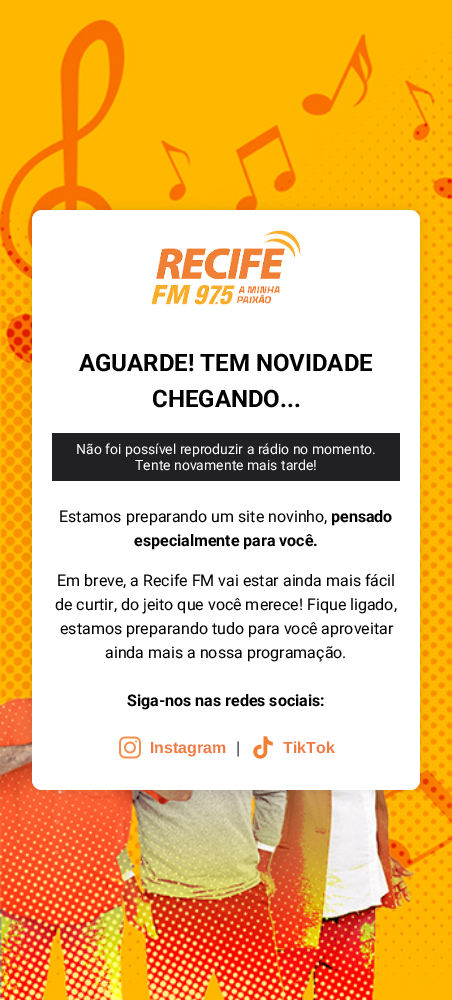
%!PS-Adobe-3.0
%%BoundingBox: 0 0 452 1000
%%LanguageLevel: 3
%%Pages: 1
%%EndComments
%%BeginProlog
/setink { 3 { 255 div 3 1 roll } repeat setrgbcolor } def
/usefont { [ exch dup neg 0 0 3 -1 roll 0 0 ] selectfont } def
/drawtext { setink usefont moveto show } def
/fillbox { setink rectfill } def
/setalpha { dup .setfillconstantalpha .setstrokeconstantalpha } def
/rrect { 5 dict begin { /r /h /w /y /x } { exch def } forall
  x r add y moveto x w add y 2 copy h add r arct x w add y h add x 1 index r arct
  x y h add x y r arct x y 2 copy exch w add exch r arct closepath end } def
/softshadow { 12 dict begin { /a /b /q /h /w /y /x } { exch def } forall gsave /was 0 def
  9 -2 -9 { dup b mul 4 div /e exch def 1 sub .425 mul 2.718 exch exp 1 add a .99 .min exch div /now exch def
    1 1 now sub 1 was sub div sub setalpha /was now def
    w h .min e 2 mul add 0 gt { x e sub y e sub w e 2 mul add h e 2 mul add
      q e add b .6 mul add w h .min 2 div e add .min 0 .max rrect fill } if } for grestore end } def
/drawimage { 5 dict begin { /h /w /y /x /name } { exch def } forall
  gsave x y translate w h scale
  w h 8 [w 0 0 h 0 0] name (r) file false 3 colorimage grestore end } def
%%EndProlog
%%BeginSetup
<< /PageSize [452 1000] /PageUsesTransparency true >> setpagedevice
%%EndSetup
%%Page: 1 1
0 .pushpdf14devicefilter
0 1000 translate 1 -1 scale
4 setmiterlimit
0 0 452 1000 255 255 255 fillbox
(assets/img1.rgb) 0 0 452 1000 drawimage
0 0 0 setink
32 210 388 580 10 5 0.1 softshadow
255 255 255 setink
32 210 388 580 10 rrect fill
(assets/img2.rgb) 151 230 150 75 drawimage
(AGUARDE! TEM NOVIDADE) 79 371 /Roboto-Bold 24 0 0 0 drawtext
(CHEGANDO...) 152 407 /Roboto-Bold 24 0 0 0 drawtext
52 433 348 48 33 33 36 fillbox
(Não foi possível reproduzir a rádio no momento.) 76 454 /Roboto-Regular 14 255 255 255 drawtext
(Tente novamente mais tarde!) 135 470 /Roboto-Regular 14 255 255 255 drawtext
(Estamos preparando um site novinho,) 59 522 /Roboto-Regular 16 0 0 0 drawtext
(pensado) 331 522 /Roboto-Bold 16 0 0 0 drawtext
(especialmente para você.) 134 546 /Roboto-Bold 16 0 0 0 drawtext
(Em breve, a Recife FM vai estar ainda mais fácil) 57 586 /Roboto-Regular 16 0 0 0 drawtext
(de curtir, do jeito que você merece! Fique ligado,) 55 610 /Roboto-Regular 16 0 0 0 drawtext
(estamos preparando tudo para você aproveitar) 60 634 /Roboto-Regular 16 0 0 0 drawtext
(ainda mais a nossa programação.) 105 658 /Roboto-Regular 16 0 0 0 drawtext
(Siga-nos nas redes sociais:) 127 706 /Roboto-Bold 16 0 0 0 drawtext
(assets/img3.rgb) 119 736 22 23 drawimage
(Instagram) 150 753 /LiberationSans-Bold 16 240 122 68 drawtext
(|) 236 753 /LiberationSans-Regular 16 51 51 51 drawtext
(assets/img4.rgb) 253 736 20 23 drawimage
(TikTok) 283 753 /LiberationSans-Bold 16 240 122 68 drawtext
.poppdf14devicefilter showpage
%%EOF
